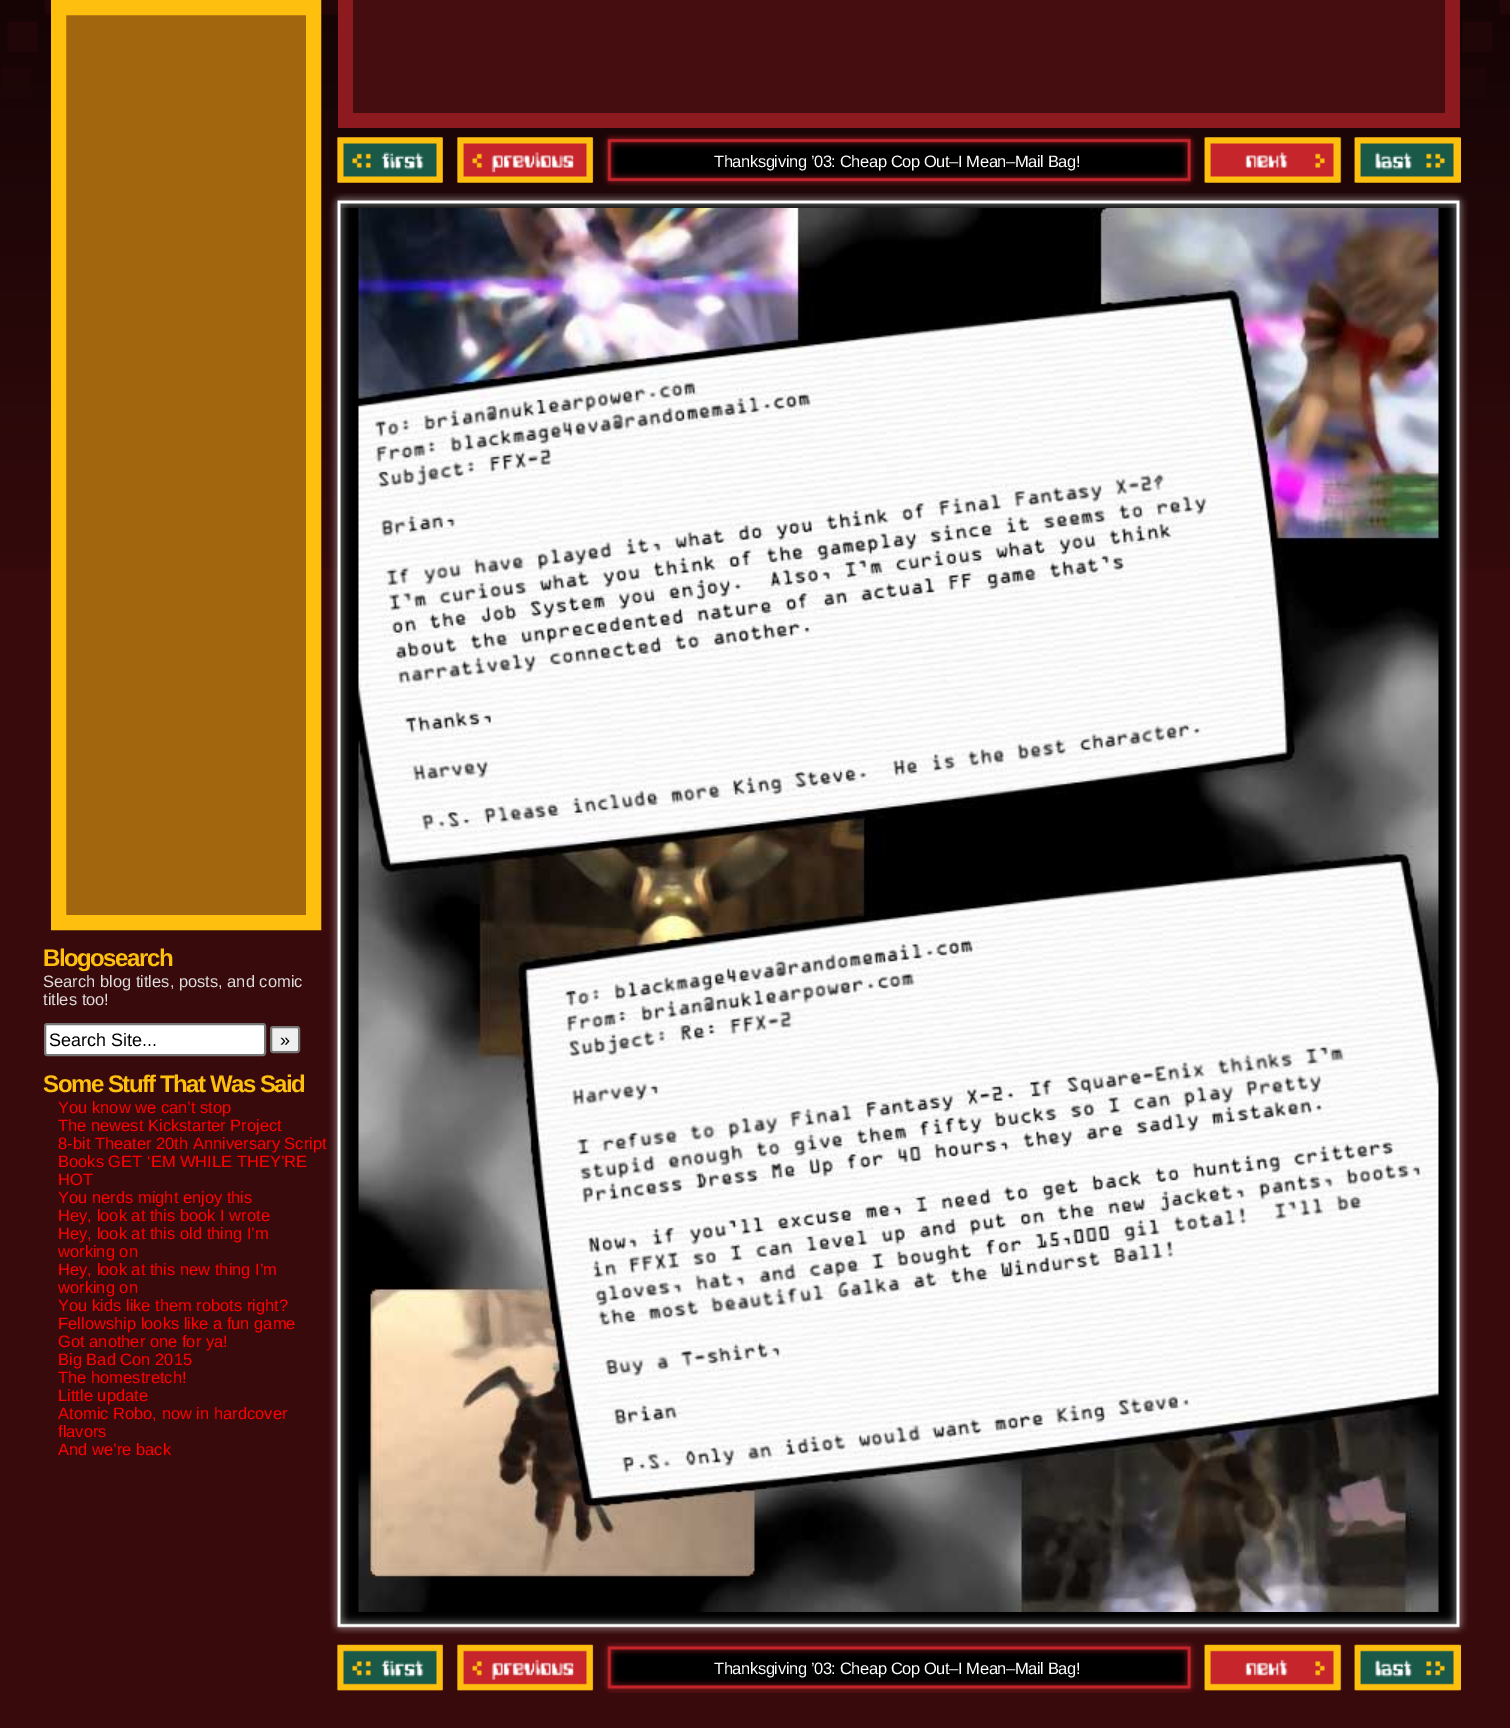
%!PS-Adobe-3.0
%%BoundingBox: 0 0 1510 1728
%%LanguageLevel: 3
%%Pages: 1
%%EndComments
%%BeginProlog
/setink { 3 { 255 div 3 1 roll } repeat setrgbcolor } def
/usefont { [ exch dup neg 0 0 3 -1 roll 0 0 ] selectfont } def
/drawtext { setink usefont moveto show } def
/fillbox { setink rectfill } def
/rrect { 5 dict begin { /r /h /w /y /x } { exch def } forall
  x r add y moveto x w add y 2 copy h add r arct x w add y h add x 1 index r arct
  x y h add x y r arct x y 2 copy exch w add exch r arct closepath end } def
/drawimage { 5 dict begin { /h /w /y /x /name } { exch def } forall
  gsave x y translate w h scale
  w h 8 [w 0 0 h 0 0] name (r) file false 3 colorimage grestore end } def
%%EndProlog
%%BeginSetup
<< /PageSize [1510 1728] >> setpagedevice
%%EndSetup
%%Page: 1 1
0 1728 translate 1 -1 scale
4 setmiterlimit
0 0 1510 1728 56 10 12 fillbox
(assets/img1.rgb) 0 0 1510 569 drawimage
162 102 15 setink
58.5 7.5 moveto 313.5 7.5 lineto 313.5 922.5 lineto 58.5 922.5 lineto closepath gsave fill grestore
254 191 15 setink
15 setlinewidth
stroke
/LiberationSans-Bold 24 usefont
43 966 moveto -1.5 0 (Blogosearch) ashow
(Search blog titles, posts, and comic) 43 987 /LiberationSans-Regular 16.5 220 220 220 drawtext
(titles too!) 43 1005 /LiberationSans-Regular 16.5 220 220 220 drawtext
255 255 255 setink
45 1024 220 31 2 rrect gsave fill grestore
118 118 118 setink
2 setlinewidth
stroke
(Search Site...) 49 1046 /LiberationSans-Regular 18 0 0 0 drawtext
239 239 239 setink
271 1027 28 25 2 rrect gsave fill grestore
118 118 118 setink
stroke
(») 280 1046 /LiberationSans-Regular 18 0 0 0 drawtext
/LiberationSans-Bold 24 usefont
254 191 15 setink
43 1092 moveto -1.5 0 (Some Stuff That Was Said) ashow
(You know we can’t stop) 58 1113 /LiberationSans-Regular 16.5 255 0 0 drawtext
(The newest Kickstarter Project) 58 1131 /LiberationSans-Regular 16.5 255 0 0 drawtext
(8-bit Theater 20th Anniversary Script) 58 1149 /LiberationSans-Regular 16.5 255 0 0 drawtext
(Books GET ‘EM WHILE THEY’RE) 58 1167 /LiberationSans-Regular 16.5 255 0 0 drawtext
(HOT) 58 1185 /LiberationSans-Regular 16.5 255 0 0 drawtext
(You nerds might enjoy this) 58 1203 /LiberationSans-Regular 16.5 255 0 0 drawtext
(Hey, look at this book I wrote) 58 1221 /LiberationSans-Regular 16.5 255 0 0 drawtext
(Hey, look at this old thing I’m) 58 1239 /LiberationSans-Regular 16.5 255 0 0 drawtext
(working on) 58 1257 /LiberationSans-Regular 16.5 255 0 0 drawtext
(Hey, look at this new thing I’m) 58 1275 /LiberationSans-Regular 16.5 255 0 0 drawtext
(working on) 58 1293 /LiberationSans-Regular 16.5 255 0 0 drawtext
(You kids like them robots right?) 58 1311 /LiberationSans-Regular 16.5 255 0 0 drawtext
(Fellowship looks like a fun game) 58 1329 /LiberationSans-Regular 16.5 255 0 0 drawtext
(Got another one for ya!) 58 1347 /LiberationSans-Regular 16.5 255 0 0 drawtext
(Big Bad Con 2015) 58 1365 /LiberationSans-Regular 16.5 255 0 0 drawtext
(The homestretch!) 58 1383 /LiberationSans-Regular 16.5 255 0 0 drawtext
(Little update) 58 1401 /LiberationSans-Regular 16.5 255 0 0 drawtext
(Atomic Robo, now in hardcover) 58 1419 /LiberationSans-Regular 16.5 255 0 0 drawtext
(flavors) 58 1437 /LiberationSans-Regular 16.5 255 0 0 drawtext
(And we’re back) 58 1455 /LiberationSans-Regular 16.5 255 0 0 drawtext
353 0 1092 113 70 13 16 fillbox
1445 0 15 113 140 26 31 fillbox
353 113 1107 15 140 26 31 fillbox
338 0 15 128 140 26 31 fillbox
(assets/img2.rgb) 337 134 1124 52 drawimage
(assets/img3.rgb) 337 137 106 46 drawimage
(assets/img4.rgb) 457 137 136 46 drawimage
255 255 255 setink
714 167 moveto -0.4 0 (Thanksgiving ’03: Cheap Cop Out–I Mean–Mail Bag!) ashow
(assets/img5.rgb) 1204 137 136 46 drawimage
(assets/img6.rgb) 1354 137 106 46 drawimage
(assets/img7.rgb) 330 193 1138 15 drawimage
(assets/img8.rgb) 329 208 1139 1404 drawimage
(assets/img9.rgb) 358 208 1081 1404 drawimage
(assets/img10.rgb) 330 1612 1138 22 drawimage
(assets/img11.rgb) 337 1642 1124 51 drawimage
(assets/img12.rgb) 337 1644 106 47 drawimage
(assets/img13.rgb) 457 1644 136 47 drawimage
714 1674 moveto -0.4 0 (Thanksgiving ’03: Cheap Cop Out–I Mean–Mail Bag!) ashow
(assets/img14.rgb) 1204 1644 136 47 drawimage
(assets/img15.rgb) 1354 1644 106 47 drawimage
showpage
%%EOF
